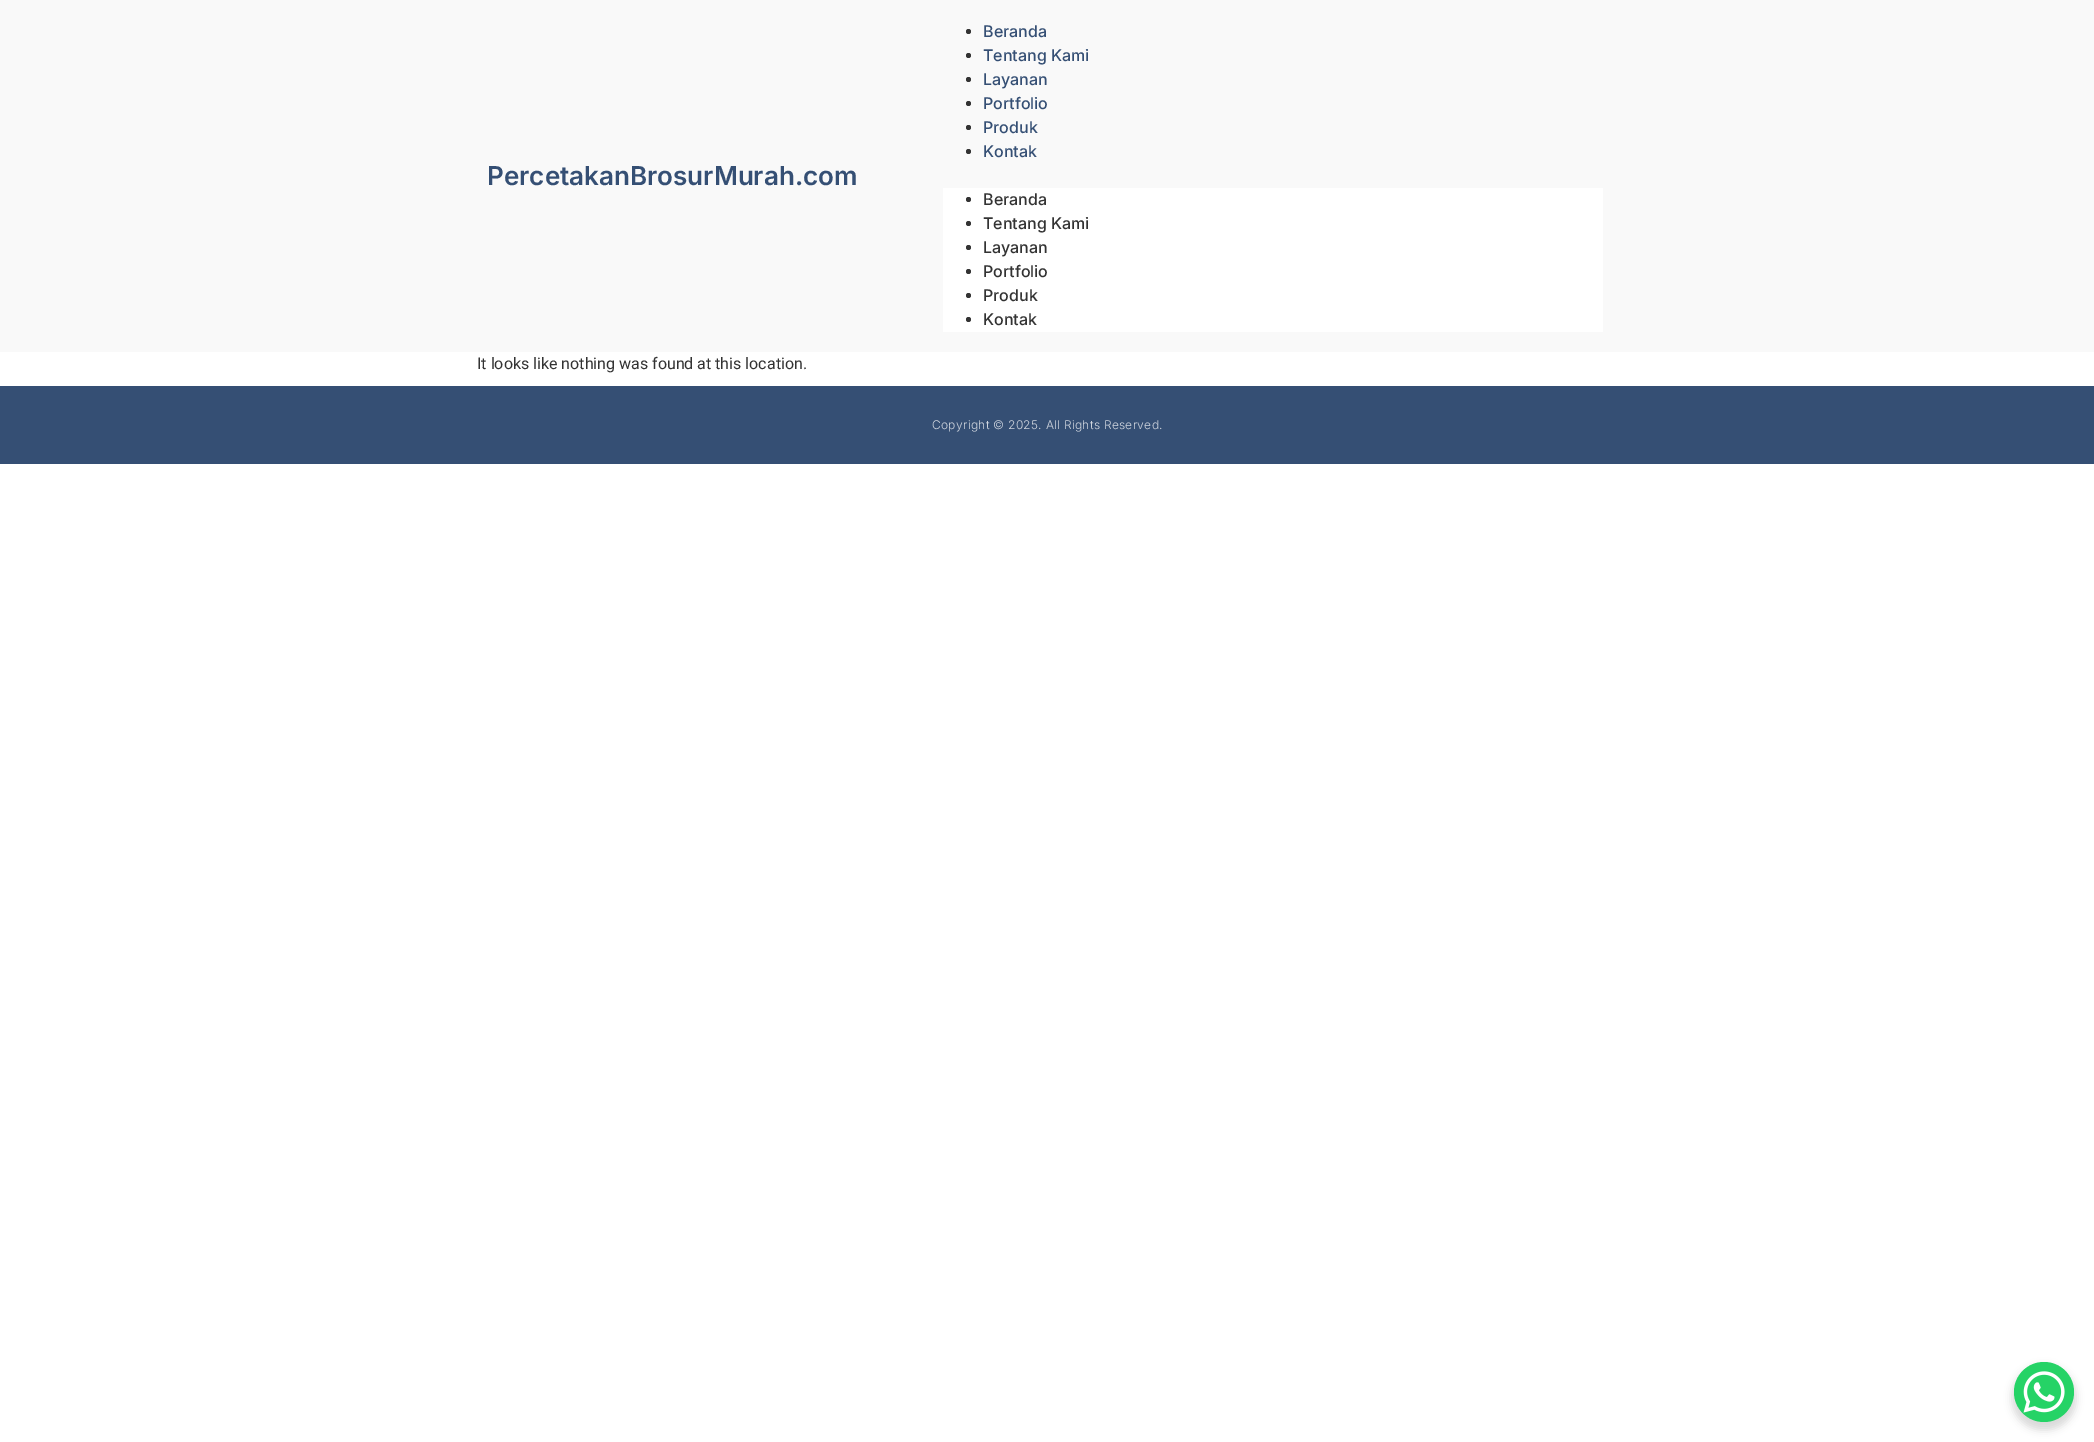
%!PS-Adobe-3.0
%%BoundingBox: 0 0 2094 1442
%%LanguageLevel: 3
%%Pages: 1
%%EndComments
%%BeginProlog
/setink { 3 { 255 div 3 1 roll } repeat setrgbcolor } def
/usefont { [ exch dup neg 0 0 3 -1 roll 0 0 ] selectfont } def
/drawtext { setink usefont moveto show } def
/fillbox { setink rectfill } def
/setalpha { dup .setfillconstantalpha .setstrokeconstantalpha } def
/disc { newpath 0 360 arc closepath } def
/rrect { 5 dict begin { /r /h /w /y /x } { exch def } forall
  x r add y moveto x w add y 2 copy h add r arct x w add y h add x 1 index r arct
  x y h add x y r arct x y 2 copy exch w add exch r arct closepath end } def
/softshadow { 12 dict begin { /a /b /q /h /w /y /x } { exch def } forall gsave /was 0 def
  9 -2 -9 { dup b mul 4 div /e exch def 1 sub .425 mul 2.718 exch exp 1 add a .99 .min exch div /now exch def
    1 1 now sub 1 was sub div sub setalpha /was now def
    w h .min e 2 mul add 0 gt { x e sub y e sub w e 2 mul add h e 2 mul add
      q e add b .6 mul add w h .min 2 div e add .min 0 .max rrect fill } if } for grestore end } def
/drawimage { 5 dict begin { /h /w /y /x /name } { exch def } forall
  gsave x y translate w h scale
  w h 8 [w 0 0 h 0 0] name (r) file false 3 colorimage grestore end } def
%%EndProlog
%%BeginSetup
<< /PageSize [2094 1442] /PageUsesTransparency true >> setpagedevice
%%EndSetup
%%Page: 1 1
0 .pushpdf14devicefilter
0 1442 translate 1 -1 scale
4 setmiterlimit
0 0 2094 1442 255 255 255 fillbox
0 0 2094 352 249 249 249 fillbox
(PercetakanBrosurMurah.com) 487 185 /Inter-SemiBold 26 53 79 116 drawtext
51 51 51 setink
968.5 31.5 2.5 disc fill
(Beranda) 983 37 /Inter-Medium 16 53 79 116 drawtext
51 51 51 setink
968.5 55.5 2.5 disc fill
(Tentang Kami) 983 61 /Inter-Medium 16 53 79 116 drawtext
51 51 51 setink
968.5 79.5 2.5 disc fill
(Layanan) 983 85 /Inter-Medium 16 53 79 116 drawtext
51 51 51 setink
968.5 103.5 2.5 disc fill
(Portfolio) 983 109 /Inter-Medium 16 53 79 116 drawtext
51 51 51 setink
968.5 127.5 2.5 disc fill
(Produk) 983 133 /Inter-Medium 16 53 79 116 drawtext
51 51 51 setink
968.5 151.5 2.5 disc fill
(Kontak) 983 157 /Inter-Medium 16 53 79 116 drawtext
943 188 660 144 255 255 255 fillbox
51 51 51 setink
968.5 199.5 2.5 disc fill
(Beranda) 983 205 /Inter-Medium 16 51 51 51 drawtext
968.5 223.5 2.5 disc fill
(Tentang Kami) 983 229 /Inter-Medium 16 51 51 51 drawtext
968.5 247.5 2.5 disc fill
(Layanan) 983 253 /Inter-Medium 16 51 51 51 drawtext
968.5 271.5 2.5 disc fill
(Portfolio) 983 277 /Inter-Medium 16 51 51 51 drawtext
968.5 295.5 2.5 disc fill
(Produk) 983 301 /Inter-Medium 16 51 51 51 drawtext
968.5 319.5 2.5 disc fill
(Kontak) 983 325 /Inter-Medium 16 51 51 51 drawtext
(It looks like nothing was found at this location.) 477 369 /Roboto-Regular 16 51 51 51 drawtext
0 386 2094 78 53 79 116 fillbox
/Inter-Light 12 usefont
207 213 222 setink
932 429 moveto 0.3 0 (Copyright © 2025. All Rights Reserved.) ashow
0 0 0 setink
2012 1366 64 64 32 4 0.15 softshadow
37 211 102 setink
2044 1392 30 disc fill
(assets/img1.rgb) 2023 1371 42 42 drawimage
.poppdf14devicefilter showpage
%%EOF
